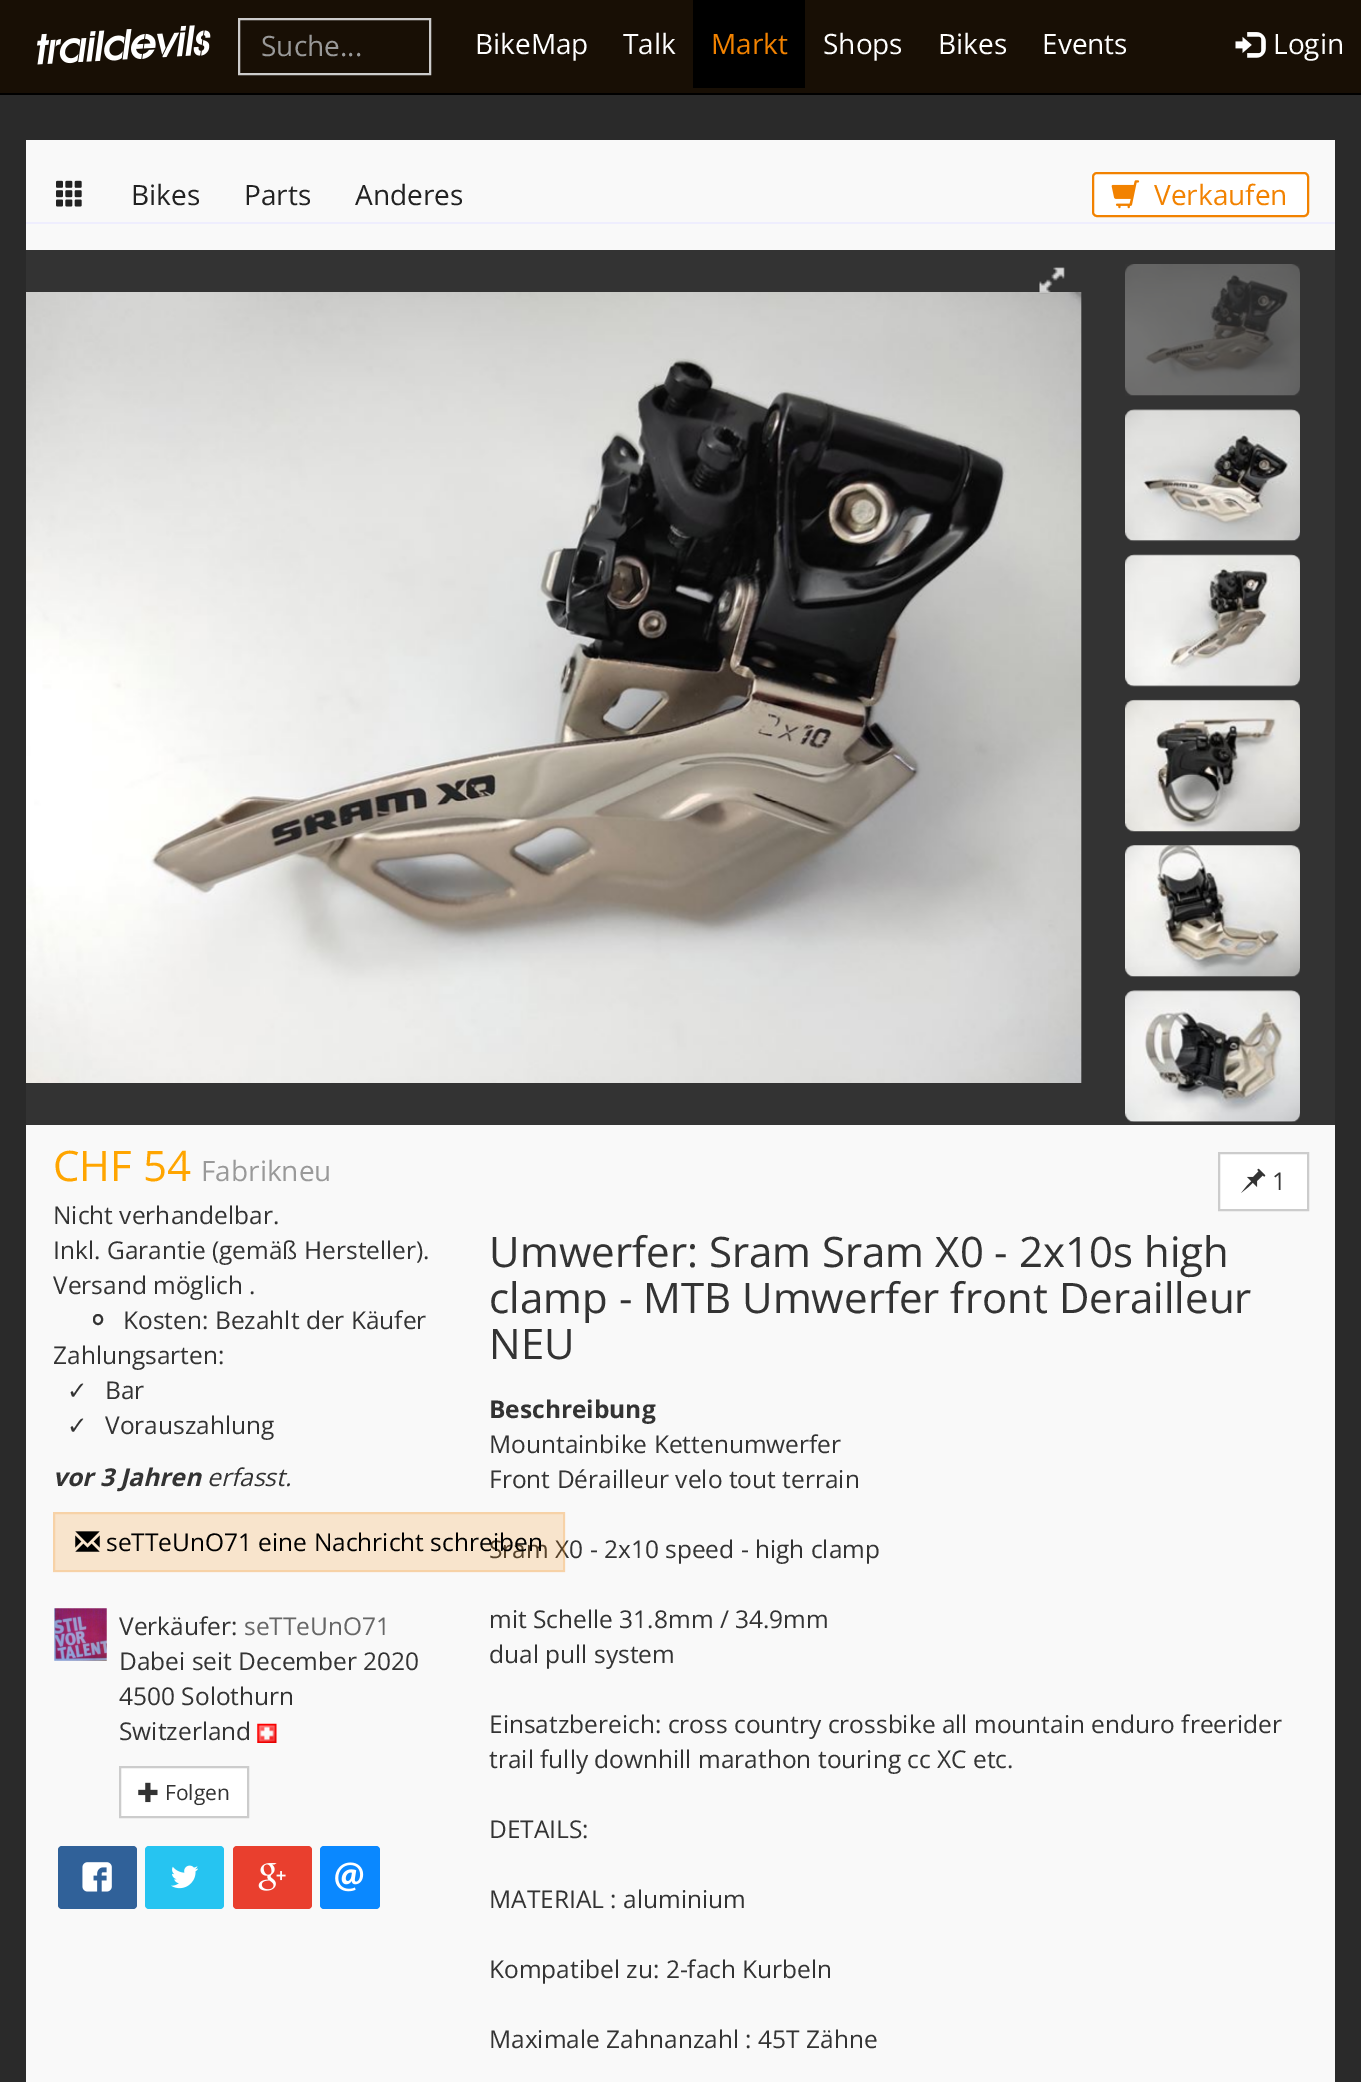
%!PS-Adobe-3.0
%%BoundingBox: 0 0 1361 2082
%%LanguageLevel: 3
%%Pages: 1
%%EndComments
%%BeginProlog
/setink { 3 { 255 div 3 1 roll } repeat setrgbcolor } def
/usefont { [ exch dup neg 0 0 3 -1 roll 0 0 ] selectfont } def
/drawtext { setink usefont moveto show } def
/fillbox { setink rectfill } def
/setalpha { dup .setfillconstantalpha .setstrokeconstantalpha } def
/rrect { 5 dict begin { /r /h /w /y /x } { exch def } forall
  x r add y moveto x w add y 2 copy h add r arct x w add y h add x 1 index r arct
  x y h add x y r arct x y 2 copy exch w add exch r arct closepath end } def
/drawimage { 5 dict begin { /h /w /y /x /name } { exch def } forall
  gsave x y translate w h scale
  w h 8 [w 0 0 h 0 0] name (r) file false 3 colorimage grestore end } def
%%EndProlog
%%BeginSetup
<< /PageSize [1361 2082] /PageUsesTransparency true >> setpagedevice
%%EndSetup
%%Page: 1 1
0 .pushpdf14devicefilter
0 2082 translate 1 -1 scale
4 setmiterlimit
0 0 1361 2082 42 42 42 fillbox
0 0 1361 93 24 15 5 fillbox
0 93 1361 2 0 0 0 fillbox
(assets/img1.rgb) 37 25 174 40 drawimage
204 204 204 setink
2 setlinewidth
239 19 191 55 rectstroke
(Suche...) 261 56 /OpenSans-Regular 28 153 153 153 drawtext
(BikeMap) 475 54 /OpenSans-Regular 28 255 255 255 drawtext
(Talk) 623 54 /OpenSans-Regular 28 255 255 255 drawtext
693 0 112 88 0 0 0 fillbox
(Markt) 711 54 /OpenSans-Regular 28 242 130 0 drawtext
(Shops) 823 54 /OpenSans-Regular 28 255 255 255 drawtext
(Bikes) 938 54 /OpenSans-Regular 28 255 255 255 drawtext
(Events) 1042 54 /OpenSans-Regular 28 255 255 255 drawtext
(assets/img2.rgb) 1235 32 31 26 drawimage
(Login) 1273 54 /OpenSans-Regular 28 255 255 255 drawtext
26 140 1309 1942 249 249 249 fillbox
26 222 1309 2 239 238 254 fillbox
(assets/img3.rgb) 56 180 26 27 drawimage
(Bikes) 131 205 /OpenSans-Regular 28 34 34 34 drawtext
(Parts) 244 205 /OpenSans-Regular 28 34 34 34 drawtext
(Anderes) 355 205 /OpenSans-Regular 28 34 34 34 drawtext
255 255 255 setink
1093 173 215 43 4 rrect gsave fill grestore
242 130 0 setink
stroke
(assets/img4.rgb) 1111 180 29 29 drawimage
(Verkaufen) 1154 205 /OpenSans-Regular 28 242 130 0 drawtext
26 250 1309 875 51 51 51 fillbox
(assets/img6.rgb) 26 292 1056 791 drawimage
(assets/img5.rgb) 1038 267 27 27 drawimage
(assets/img7.rgb) 1125 264 175 132 drawimage
(assets/img8.rgb) 1125 409 175 133 drawimage
(assets/img9.rgb) 1125 554 175 133 drawimage
(assets/img10.rgb) 1125 699 175 133 drawimage
(assets/img11.rgb) 1125 845 175 132 drawimage
(assets/img12.rgb) 1125 990 175 132 drawimage
(CHF 54) 53 1181 /OpenSans-Regular 42 255 165 0 drawtext
(Fabrikneu) 201 1181 /OpenSans-Regular 28 153 153 153 drawtext
(Nicht verhandelbar.) 53 1224 /OpenSans-Regular 24.5 51 51 51 drawtext
(Inkl. Garantie \(gemäß Hersteller\).) 53 1259 /OpenSans-Regular 24.5 51 51 51 drawtext
(Versand möglich .) 53 1294 /OpenSans-Regular 24.5 51 51 51 drawtext
94 1315 8 9 4 rrect stroke
(Kosten: Bezahlt der Käufer) 123 1329 /OpenSans-Regular 24.5 51 51 51 drawtext
(Zahlungsarten:) 53 1364 /OpenSans-Regular 24.5 51 51 51 drawtext
(✓) 67 1399 /DejaVuSans-Regular 24.5 51 51 51 drawtext
(Bar) 105 1399 /OpenSans-Regular 24.5 51 51 51 drawtext
(✓) 67 1434 /DejaVuSans-Regular 24.5 51 51 51 drawtext
(Vorauszahlung) 105 1434 /OpenSans-Regular 24.5 51 51 51 drawtext
(vor 3 Jahren) 53 1486 /OpenSans-BoldItalic 24.5 51 51 51 drawtext
(erfasst.) 207 1486 /OpenSans-Italic 24.5 51 51 51 drawtext
(Sram X0 - 2x10 speed - high clamp) 489 1558 /OpenSans-Regular 24.5 51 51 51 drawtext
0.18 setalpha
53 1512 512 60 242 130 0 fillbox
54 1513 510 58 rectstroke
1 setalpha
(assets/img13.rgb) 75 1531 25 21 drawimage
(seTTeUnO71 eine Nachricht schreiben) 106 1551 /OpenSans-Regular 24.5 0 0 0 drawtext
(assets/img14.rgb) 54 1608 53 53 drawimage
(Verkäufer:) 119 1635 /OpenSans-Regular 24.5 51 51 51 drawtext
(seTTeUnO71) 244 1635 /OpenSans-Regular 24.5 102 102 102 drawtext
(Dabei seit December 2020) 119 1670 /OpenSans-Regular 24.5 51 51 51 drawtext
(4500 Solothurn) 119 1705 /OpenSans-Regular 24.5 51 51 51 drawtext
(Switzerland) 119 1740 /OpenSans-Regular 24.5 51 51 51 drawtext
(assets/img15.rgb) 257 1723 20 20 drawimage
255 255 255 setink
120 1767 moveto 248 1767 lineto 248 1817 lineto 120 1817 lineto closepath gsave fill grestore
204 204 204 setink
stroke
(assets/img16.rgb) 138 1782 20 21 drawimage
(Folgen) 165 1800 /OpenSans-Regular 21 51 51 51 drawtext
48 97 153 setink
58 1846 79 63 4 rrect fill
(assets/img17.rgb) 82 1862 30 30 drawimage
38 196 241 setink
145 1846 79 63 4 rrect fill
(assets/img18.rgb) 171 1865 27 24 drawimage
233 63 46 setink
233 1846 79 63 4 rrect fill
(assets/img19.rgb) 258 1863 28 28 drawimage
10 136 255 setink
320 1846 60 63 4 rrect fill
(assets/img20.rgb) 335 1862 29 30 drawimage
255 255 255 setink
1219 1153 moveto 1308 1153 lineto 1308 1210 lineto 1219 1210 lineto closepath gsave fill grestore
204 204 204 setink
stroke
(assets/img21.rgb) 1241 1168 25 25 drawimage
(1) 1272 1190 /OpenSans-Regular 24.5 51 51 51 drawtext
(Umwerfer: Sram Sram X0 - 2x10s high) 489 1267 /OpenSans-Regular 42 51 51 51 drawtext
(clamp - MTB Umwerfer front Derailleur) 489 1313 /OpenSans-Regular 42 51 51 51 drawtext
(NEU) 489 1359 /OpenSans-Regular 42 51 51 51 drawtext
(Beschreibung) 489 1418 /OpenSans-Bold 24.5 51 51 51 drawtext
(Mountainbike Kettenumwerfer) 489 1453 /OpenSans-Regular 24.5 51 51 51 drawtext
(Front Dérailleur velo tout terrain) 489 1488 /OpenSans-Regular 24.5 51 51 51 drawtext
(mit Schelle 31.8mm / 34.9mm) 489 1628 /OpenSans-Regular 24.5 51 51 51 drawtext
(dual pull system) 489 1663 /OpenSans-Regular 24.5 51 51 51 drawtext
(Einsatzbereich: cross country crossbike all mountain enduro freerider) 489 1733 /OpenSans-Regular 24.5 51 51 51 drawtext
(trail fully downhill marathon touring cc XC etc.) 489 1768 /OpenSans-Regular 24.5 51 51 51 drawtext
(DETAILS:) 489 1838 /OpenSans-Regular 24.5 51 51 51 drawtext
(MATERIAL : aluminium) 489 1908 /OpenSans-Regular 24.5 51 51 51 drawtext
(Kompatibel zu: 2-fach Kurbeln) 489 1978 /OpenSans-Regular 24.5 51 51 51 drawtext
(Maximale Zahnanzahl : 45T Zähne) 489 2048 /OpenSans-Regular 24.5 51 51 51 drawtext
.poppdf14devicefilter showpage
%%EOF
